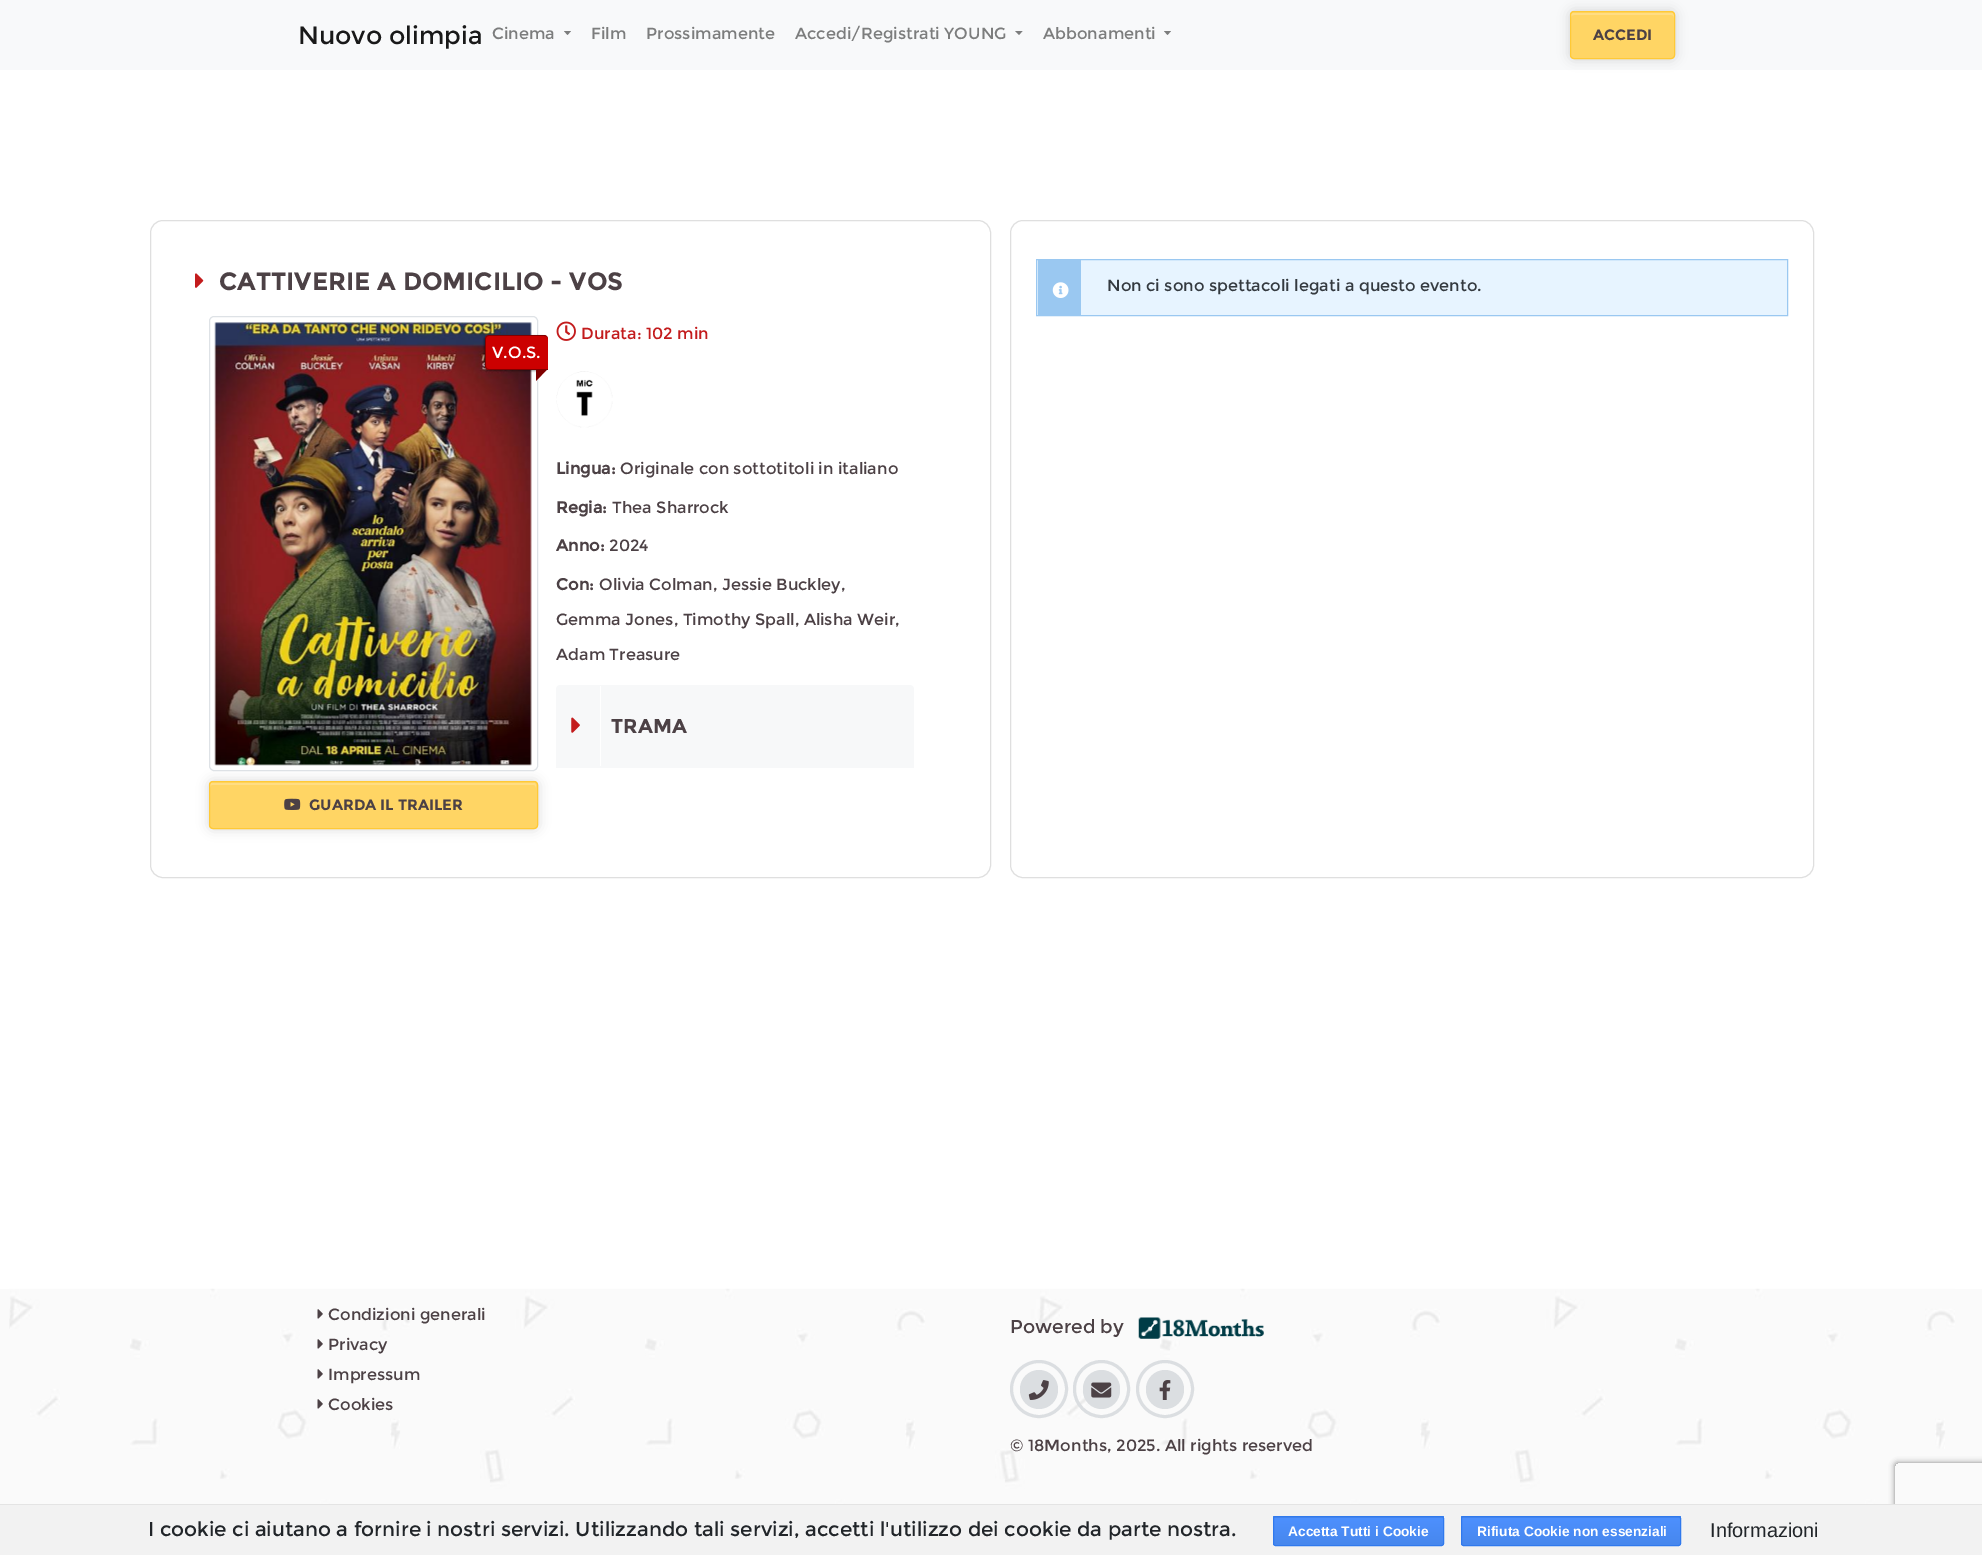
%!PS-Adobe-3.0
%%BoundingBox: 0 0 1982 1555
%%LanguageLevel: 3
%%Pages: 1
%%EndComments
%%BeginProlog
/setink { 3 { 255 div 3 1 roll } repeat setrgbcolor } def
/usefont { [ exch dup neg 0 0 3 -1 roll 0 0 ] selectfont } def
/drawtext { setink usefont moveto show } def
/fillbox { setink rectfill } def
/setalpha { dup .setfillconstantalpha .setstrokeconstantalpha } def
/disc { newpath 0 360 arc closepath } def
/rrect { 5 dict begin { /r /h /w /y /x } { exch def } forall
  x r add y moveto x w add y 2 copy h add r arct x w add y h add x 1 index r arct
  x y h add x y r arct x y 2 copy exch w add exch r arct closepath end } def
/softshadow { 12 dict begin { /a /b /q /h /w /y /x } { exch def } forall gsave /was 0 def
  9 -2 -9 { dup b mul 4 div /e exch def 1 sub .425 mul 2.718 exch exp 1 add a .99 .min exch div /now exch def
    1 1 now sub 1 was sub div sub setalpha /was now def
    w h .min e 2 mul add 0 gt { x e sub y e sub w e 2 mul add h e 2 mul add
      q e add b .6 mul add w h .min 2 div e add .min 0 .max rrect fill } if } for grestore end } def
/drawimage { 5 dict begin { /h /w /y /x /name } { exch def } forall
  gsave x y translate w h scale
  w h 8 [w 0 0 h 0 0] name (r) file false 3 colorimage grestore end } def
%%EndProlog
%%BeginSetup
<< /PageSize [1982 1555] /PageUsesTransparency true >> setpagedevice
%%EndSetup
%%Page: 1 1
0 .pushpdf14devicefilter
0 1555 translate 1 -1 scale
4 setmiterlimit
0 0 1982 1555 255 255 255 fillbox
0 0 1982 70 248 249 250 fillbox
(Nuovo olimpia) 298 44 /Montserrat-Regular 25 25 25 25 drawtext
(Cinema) 492 39 /Montserrat-Regular 16.25 124 125 125 drawtext
564 31 moveto 571 31 lineto 567.5 35 lineto closepath fill
(Film) 591 39 /Montserrat-Regular 16.25 124 125 125 drawtext
(Prossimamente) 646 39 /Montserrat-Regular 16.25 124 125 125 drawtext
(Accedi/Registrati YOUNG) 795 39 /Montserrat-Regular 16.25 124 125 125 drawtext
1015 31 moveto 1022.5 31 lineto 1019 35 lineto closepath fill
(Abbonamenti) 1043 39 /Montserrat-Regular 16.25 124 125 125 drawtext
1164 31 moveto 1171 31 lineto 1167.5 35 lineto closepath fill
0 0 0 setink
1570 11 105 48 4 6 0.16 softshadow
255 213 100 setink
1570 11 105 48 4 rrect fill
255 221 131 setink
1574 15 moveto 1671 15 lineto 1673 15 1674 16 1674 18 curveto 1674 16 lineto 1674 14 1673 13 1672 13 curveto 1574 13 lineto 1572 13 1571 14 1571 16 curveto 1571 18 lineto 1571 16 1572 15 1574 15 curveto closepath fill
255 201 54 setink
1570.5 11.5 104 47 3.5 rrect stroke
(ACCEDI) 1593 40 /Montserrat-Bold 15 76 65 69 drawtext
223 223 223 setink
150.5 220.5 840 657 12.5 rrect stroke
(assets/img1.rgb) 195 273 9 15 drawimage
(CATTIVERIE A DOMICILIO - VOS) 219 290 /Montserrat-Bold 25 76 65 69 drawtext
0 0 0 setink
209 781 329 48 4 6 0.16 softshadow
222 226 230 setink
209.5 316.5 328 454 4.5 rrect stroke
(assets/img2.rgb) 214 322 318 444 drawimage
0 0 0 setink
484 336 62 35 4 1 0.4 softshadow
204 0 0 setink
489 335 moveto 544 335 lineto 546 335 548 337 548 339 curveto 548 370 lineto 489 370 lineto 487 370 485 368 485 366 curveto 485 339 lineto 485 337 487 335 489 335 curveto closepath fill
128 0 0 setink
489 335 moveto 544 335 lineto 546 335 548 337 548 339 curveto 548 370 lineto 489 370 lineto 487 370 485 368 485 366 curveto 485 339 lineto 485 337 487 335 489 335 curveto closepath 489 336 moveto 544 336 lineto 546 336 548 337 548 339 curveto 548 369 lineto 489 369 lineto 487 369 486 368 486 366 curveto 486 339 lineto 486 337 487 336 489 336 curveto closepath eofill
(V.O.S.) 492 358 /Montserrat-Regular 16.25 255 255 255 drawtext
128 0 0 setink
536 381 moveto 536 369 lineto 547.5 369 lineto closepath fill
255 213 100 setink
209 781 329 48 4 rrect fill
255 221 131 setink
212 785 moveto 534 785 lineto 535 785 536 786 536 788 curveto 536 786 lineto 536 784 535 783 534 783 curveto 212 783 lineto 211 783 210 784 210 786 curveto 210 788 lineto 210 786 211 785 212 785 curveto closepath fill
255 201 54 setink
209.5 781.5 328 47 3.5 rrect stroke
(assets/img3.rgb) 284 798 17 12 drawimage
(GUARDA IL TRAILER) 309 810 /Montserrat-Bold 15 76 65 69 drawtext
(assets/img4.rgb) 556 321 20 20 drawimage
(Durata: 102 min) 581 339 /Montserrat-Regular 16.25 195 28 29 drawtext
(assets/img5.rgb) 556 371 57 57 drawimage
(Lingua:) 556 474 /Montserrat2-Bold 16.25 76 65 69 drawtext
(Originale con sottotitoli in italiano) 620 474 /Montserrat-Regular 16.25 76 65 69 drawtext
(Regia:) 556 513 /Montserrat2-Bold 16.25 76 65 69 drawtext
(Thea Sharrock) 612 513 /Montserrat-Regular 16.25 76 65 69 drawtext
(Anno:) 556 551 /Montserrat2-Bold 16.25 76 65 69 drawtext
(2024) 609 551 /Montserrat-Regular 16.25 76 65 69 drawtext
(Con:) 556 590 /Montserrat2-Bold 16.25 76 65 69 drawtext
(Olivia Colman, Jessie Buckley,) 599 590 /Montserrat-Regular 16.25 76 65 69 drawtext
(Gemma Jones, Timothy Spall, Alisha Weir,) 556 625 /Montserrat-Regular 16.25 76 65 69 drawtext
(Adam Treasure) 556 660 /Montserrat-Regular 16.25 76 65 69 drawtext
247 248 249 setink
560 685 moveto 910 685 lineto 912 685 914 687 914 689 curveto 914 768 lineto 556 768 lineto 556 689 lineto 556 687 558 685 560 685 curveto closepath fill
600 686 1 80 255 255 255 fillbox
(assets/img6.rgb) 571 717 9 16 drawimage
(TRAMA) 611 733 /Montserrat-Bold 20 76 65 69 drawtext
223 223 223 setink
1010.5 220.5 803 657 12.5 rrect stroke
231 244 255 setink
1036.5 259.5 moveto 1787.5 259.5 lineto 1787.5 315.5 lineto 1036.5 315.5 lineto closepath gsave fill grestore
154 200 241 setink
stroke
1038 260 43 55 154 200 241 fillbox
(assets/img7.rgb) 1052 282 17 16 drawimage
(Non ci sono spettacoli legati a questo evento.) 1107 291 /Montserrat-Regular 16.25 52 58 64 drawtext
0 1289 1982 215 250 250 250 fillbox
(assets/img8.rgb) 9 1288 1946 216 drawimage
(assets/img9.rgb) 317 1309 6 10 drawimage
(Condizioni generali) 328 1320 /Montserrat-Regular 16.25 76 65 69 drawtext
(assets/img9.rgb) 317 1339 6 10 drawimage
(Privacy) 328 1350 /Montserrat-Regular 16.25 76 65 69 drawtext
(assets/img9.rgb) 317 1369 6 10 drawimage
(Impressum) 328 1380 /Montserrat-Regular 16.25 76 65 69 drawtext
(assets/img9.rgb) 317 1399 6 10 drawimage
(Cookies) 328 1410 /Montserrat-Regular 16.25 76 65 69 drawtext
(Powered by) 1010 1333 /Montserrat-Regular 18.75 76 65 69 drawtext
(assets/img10.rgb) 1138 1317 126 22 drawimage
219 222 225 setink
1020 1370 38 39 19 rrect fill
(assets/img11.rgb) 1028 1380 21 20 drawimage
3 setlinewidth
1039 1389 27.5 disc stroke
1083 1370 37 39 18.5 rrect fill
(assets/img12.rgb) 1091 1382 21 16 drawimage
1074.5 1361.5 54 55 27 rrect stroke
1146 1370 38 39 19 rrect fill
(assets/img13.rgb) 1159 1380 12 20 drawimage
1165 1389 27.5 disc stroke
(© 18Months, 2025. All rights reserved) 1010 1451 /Montserrat-Regular 16.25 76 65 69 drawtext
gsave
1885 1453 moveto 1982 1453 lineto 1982 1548 lineto 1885 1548 lineto closepath 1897.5 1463 moveto 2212.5 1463 lineto 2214 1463 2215 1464 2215 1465.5 curveto 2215 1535.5 lineto 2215 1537 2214 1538 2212.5 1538 curveto 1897.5 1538 lineto 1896 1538 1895 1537 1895 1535.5 curveto 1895 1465.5 lineto 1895 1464 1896 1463 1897.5 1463 curveto closepath eoclip newpath
128 128 128 setink
1895 1463 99 75 2.5 3 1 softshadow
grestore
0 1505 1982 50 242 242 242 fillbox
0 1504 1982 1 228 228 228 fillbox
(I cookie ci aiutano a fornire i nostri servizi. Utilizzando tali servizi, accetti l'utilizzo dei cookie da parte nostra.) 148 1536 /Montserrat-Regular 20 33 37 41 drawtext
gsave
1273 1516 171 30 2.5 rrect clip newpath
gsave 1273 1516 moveto 1444 1516 lineto 1444 1518 lineto 1273 1518 lineto closepath clip newpath
<< /ShadingType 2 /ColorSpace /DeviceRGB /Coords [1358 1490 1358 1518] /Extend [true true] /Function << /FunctionType 2 /Domain [0 1] /C0 [0.302 0.565 0.996] /C1 [0.278 0.529 0.929] /N 1 >> >> shfill grestore
grestore
gsave 1273 1518 moveto 1444 1518 lineto 1444 1545 lineto 1273 1545 lineto closepath clip newpath
<< /ShadingType 2 /ColorSpace /DeviceRGB /Coords [1358 1518 1358 1545] /Extend [true true] /Function << /FunctionType 2 /Domain [0 1] /C0 [0.302 0.565 0.996] /C1 [0.278 0.529 0.929] /N 1 >> >> shfill grestore
48 121 237 setink
1 setlinewidth
1273.5 1516.5 170 29 2 rrect stroke
(Accetta Tutti i Cookie) 1288 1536 /LiberationSans-Bold 13.75 255 255 255 drawtext
gsave
1461 1516 220 30 2.5 rrect clip newpath
gsave 1461 1516 moveto 1681 1516 lineto 1681 1518 lineto 1461 1518 lineto closepath clip newpath
<< /ShadingType 2 /ColorSpace /DeviceRGB /Coords [1571 1490 1571 1518] /Extend [true true] /Function << /FunctionType 2 /Domain [0 1] /C0 [0.302 0.565 0.996] /C1 [0.278 0.529 0.929] /N 1 >> >> shfill grestore
grestore
gsave 1461 1518 moveto 1681 1518 lineto 1681 1545 lineto 1461 1545 lineto closepath clip newpath
<< /ShadingType 2 /ColorSpace /DeviceRGB /Coords [1571 1518 1571 1545] /Extend [true true] /Function << /FunctionType 2 /Domain [0 1] /C0 [0.302 0.565 0.996] /C1 [0.278 0.529 0.929] /N 1 >> >> shfill grestore
48 121 237 setink
1461.5 1516.5 219 29 2 rrect stroke
(Rifiuta Cookie non essenziali) 1477 1536 /LiberationSans-Bold 13.75 255 255 255 drawtext
(Informazioni) 1710 1537 /LiberationSans-Regular 20 33 37 41 drawtext
.poppdf14devicefilter showpage
%%EOF
